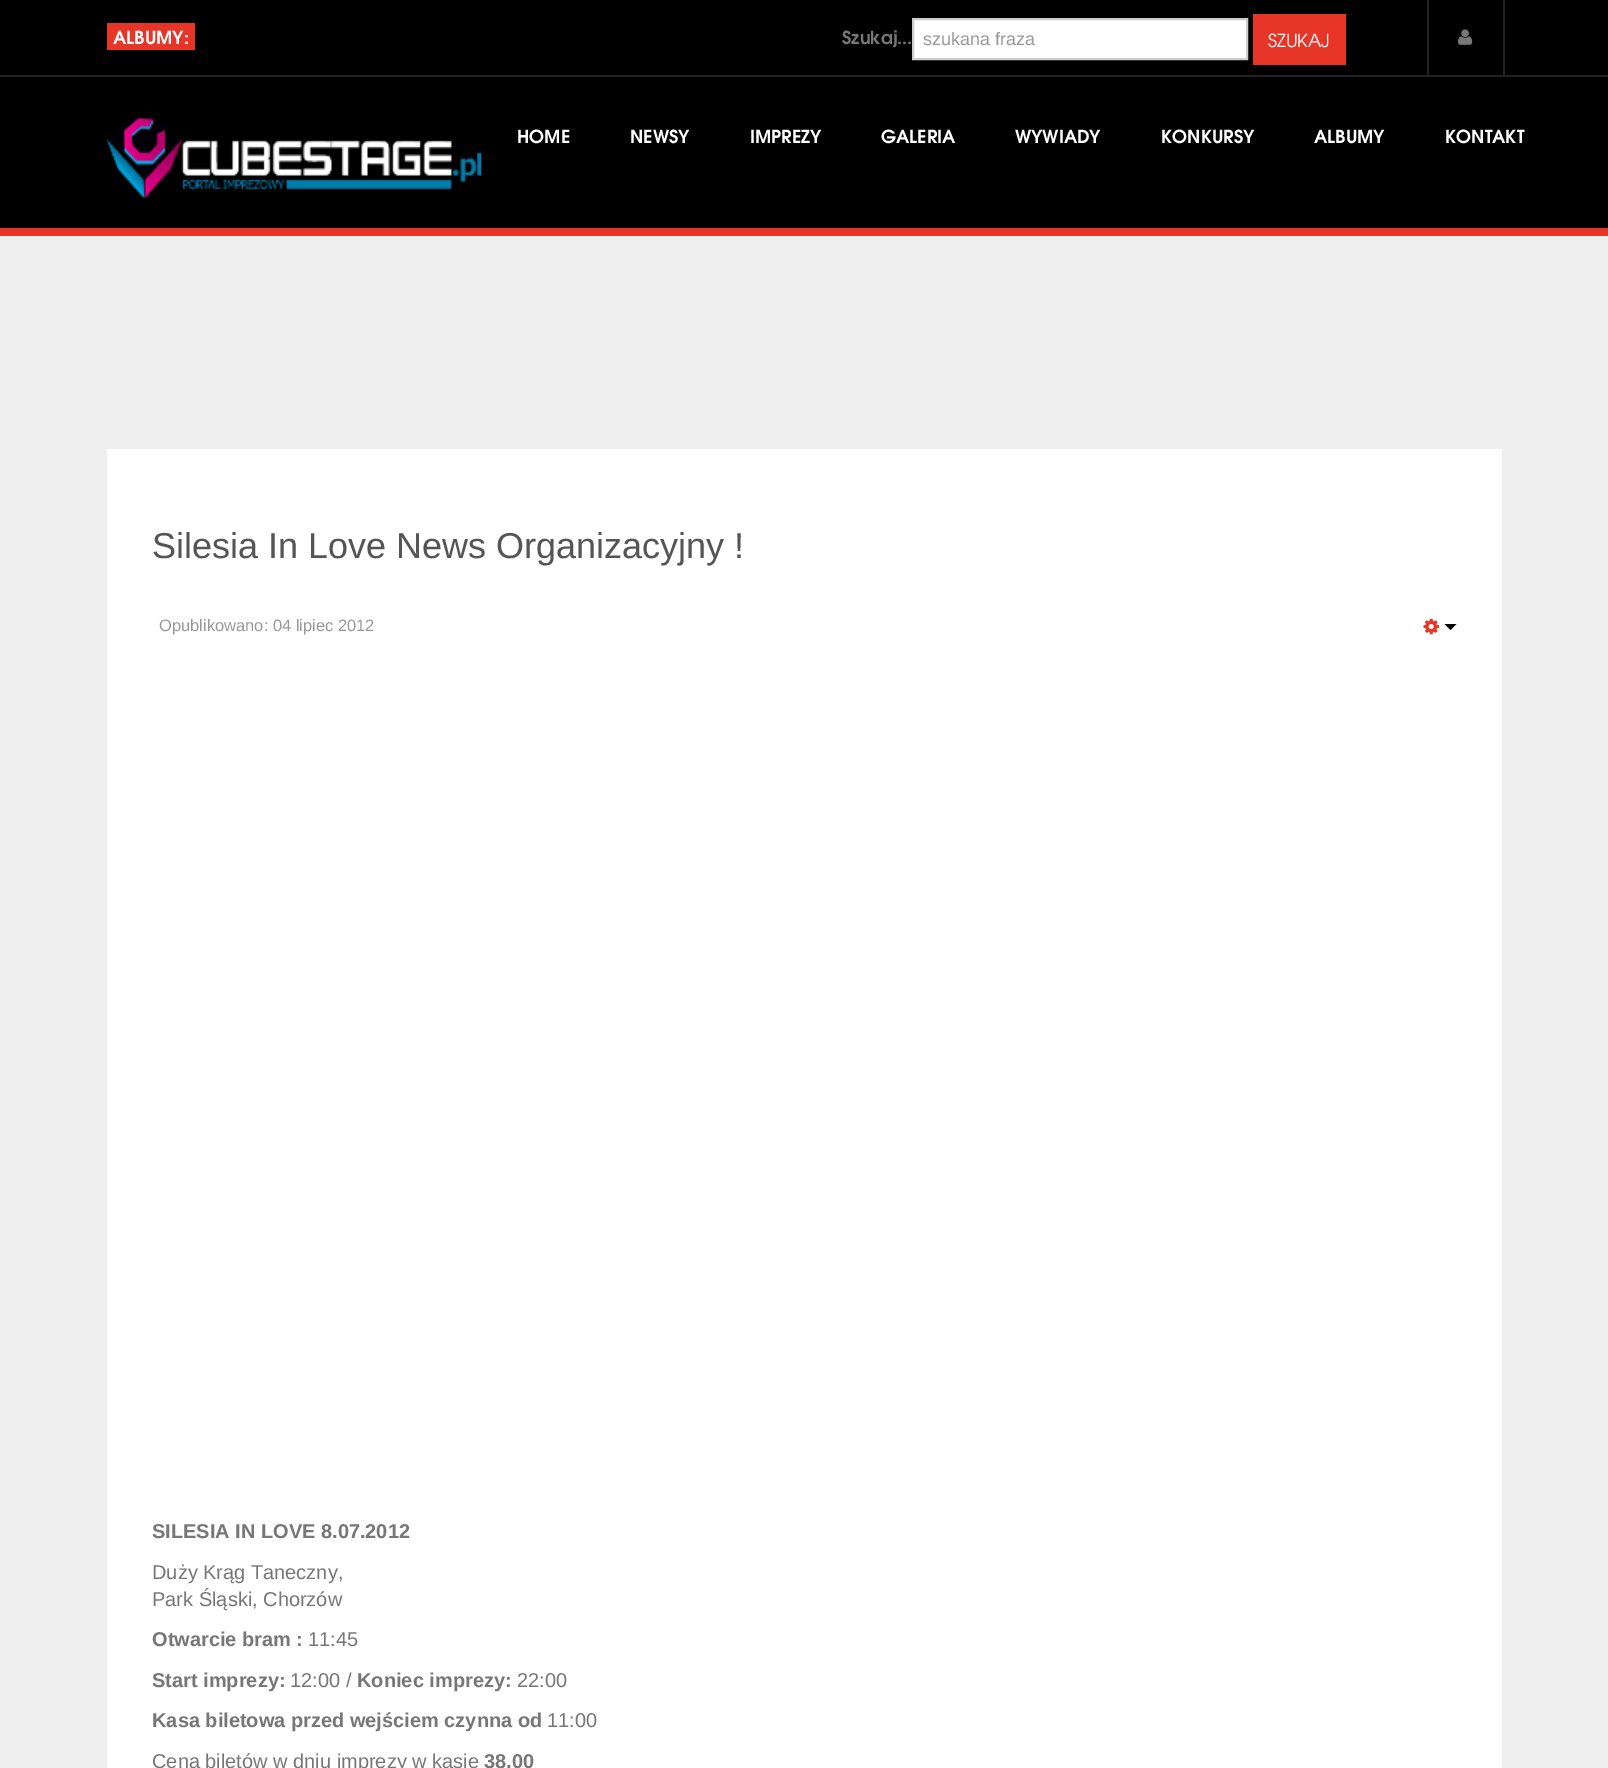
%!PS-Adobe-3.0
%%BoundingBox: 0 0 1608 1768
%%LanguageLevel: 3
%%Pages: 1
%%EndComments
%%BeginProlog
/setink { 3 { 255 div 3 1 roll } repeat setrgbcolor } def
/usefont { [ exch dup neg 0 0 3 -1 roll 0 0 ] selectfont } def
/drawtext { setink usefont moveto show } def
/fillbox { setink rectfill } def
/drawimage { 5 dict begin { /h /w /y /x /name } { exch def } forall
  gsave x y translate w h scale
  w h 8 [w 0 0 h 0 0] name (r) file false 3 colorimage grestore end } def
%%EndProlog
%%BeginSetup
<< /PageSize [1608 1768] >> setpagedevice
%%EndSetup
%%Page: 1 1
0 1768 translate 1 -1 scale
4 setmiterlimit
0 0 1608 1768 238 238 238 fillbox
0 77 1608 151 0 0 0 fillbox
0 228 1608 8 231 54 40 fillbox
0 0 1608 75 0 0 0 fillbox
0 75 1608 2 34 34 34 fillbox
107 23 88 27 231 54 40 fillbox
(ALBUMY:) 113 44 /TeXGyreAdventor-Bold 18 255 255 255 drawtext
(Szukaj...) 842 44 /TeXGyreAdventor-Bold 18 119 119 119 drawtext
255 255 255 setink
913 19 moveto 1247 19 lineto 1247 59 lineto 913 59 lineto closepath gsave fill grestore
204 204 204 setink
2 setlinewidth
stroke
(szukana fraza) 923 45 /LiberationSans-Regular 18 153 153 153 drawtext
1253 14 93 51 231 54 40 fillbox
(SZUKAJ) 1268 47 /TeXGyreAdventor-Regular 18 255 255 255 drawtext
1503 0 2 75 34 34 34 fillbox
1427 0 2 75 34 34 34 fillbox
(assets/img1.rgb) 1458 29 15 16 drawimage
(assets/img2.rgb) 106 107 376 91 drawimage
(HOME) 517 143 /TeXGyreAdventor-Bold 18 255 255 255 drawtext
(NEWSY) 630 143 /TeXGyreAdventor-Bold 18 255 255 255 drawtext
(IMPREZY) 750 143 /TeXGyreAdventor-Bold 18 255 255 255 drawtext
(GALERIA) 881 143 /TeXGyreAdventor-Bold 18 255 255 255 drawtext
(WYWIADY) 1015 143 /TeXGyreAdventor-Bold 18 255 255 255 drawtext
(KONKURSY) 1161 143 /TeXGyreAdventor-Bold 18 255 255 255 drawtext
(ALBUMY) 1314 143 /TeXGyreAdventor-Bold 18 255 255 255 drawtext
(KONTAKT) 1445 143 /TeXGyreAdventor-Bold 18 255 255 255 drawtext
107 449 1395 1319 255 255 255 fillbox
(Silesia In Love News Organizacyjny !) 152 558 /LiberationSans-Regular 36 85 85 85 drawtext
(Opublikowano: 04 lipiec 2012) 159 631 /LiberationSans-Regular 16.5 153 153 153 drawtext
(assets/img3.rgb) 1423 618 16 17 drawimage
0 0 0 setink
1444.5 624 moveto 1456.5 624 lineto 1450.5 630 lineto closepath fill
(SILESIA IN LOVE 8.07.2012) 152 1538 /LiberationSans-Bold 20 119 119 119 drawtext
(Duży Krąg Taneczny,) 152 1579 /LiberationSans-Regular 20 119 119 119 drawtext
(Park Śląski, Chorzów) 152 1606 /LiberationSans-Regular 20 119 119 119 drawtext
(Otwarcie bram :) 152 1646 /LiberationSans-Bold 20 119 119 119 drawtext
(11:45) 308 1646 /LiberationSans-Regular 20 119 119 119 drawtext
(Start imprezy:) 152 1687 /LiberationSans-Bold 20 119 119 119 drawtext
(12:00 /) 290 1687 /LiberationSans-Regular 20 119 119 119 drawtext
(Koniec imprezy:) 357 1687 /LiberationSans-Bold 20 119 119 119 drawtext
(22:00) 517 1687 /LiberationSans-Regular 20 119 119 119 drawtext
(Kasa biletowa przed wejściem czynna od) 152 1727 /LiberationSans-Bold 20 119 119 119 drawtext
(11:00) 547 1727 /LiberationSans-Regular 20 119 119 119 drawtext
(Cena biletów w dniu imprezy w kasie) 152 1768 /LiberationSans-Regular 20 119 119 119 drawtext
(38,00) 484 1768 /LiberationSans-Bold 20 119 119 119 drawtext
showpage
%%EOF
